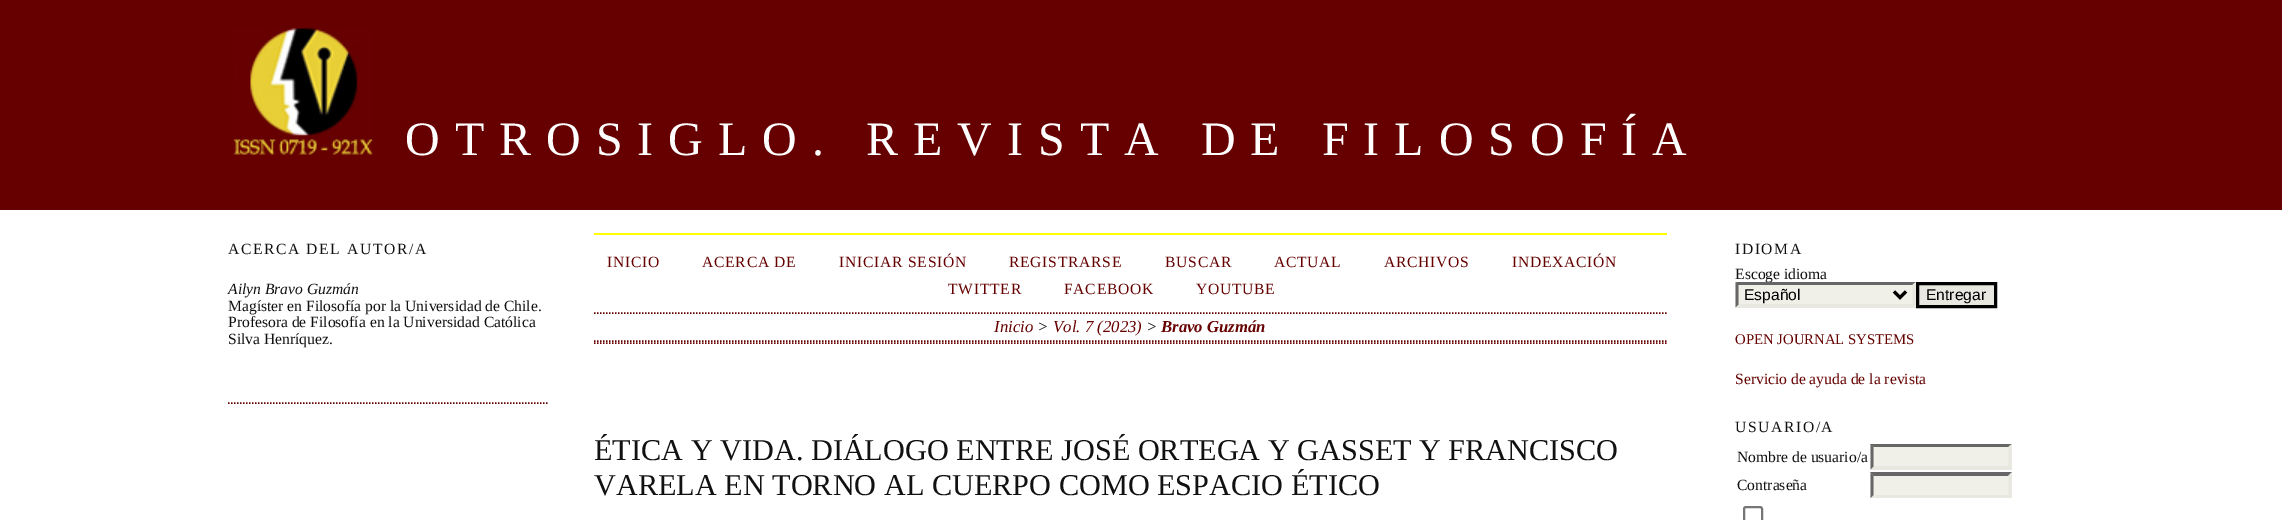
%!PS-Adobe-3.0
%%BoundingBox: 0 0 2282 520
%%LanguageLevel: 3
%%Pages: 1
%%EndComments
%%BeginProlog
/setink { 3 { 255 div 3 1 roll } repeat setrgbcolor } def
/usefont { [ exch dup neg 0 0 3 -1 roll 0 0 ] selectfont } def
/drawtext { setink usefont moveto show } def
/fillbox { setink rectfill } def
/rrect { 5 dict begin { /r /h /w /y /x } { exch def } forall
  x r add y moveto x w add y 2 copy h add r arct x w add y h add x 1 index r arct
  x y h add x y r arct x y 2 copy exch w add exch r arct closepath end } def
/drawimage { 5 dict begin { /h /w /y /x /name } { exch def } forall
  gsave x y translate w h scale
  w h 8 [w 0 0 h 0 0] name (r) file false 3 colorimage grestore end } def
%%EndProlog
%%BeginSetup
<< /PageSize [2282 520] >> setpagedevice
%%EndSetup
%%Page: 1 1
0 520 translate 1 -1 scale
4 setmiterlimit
0 0 2282 520 255 255 255 fillbox
0 0 2282 210 102 0 0 fillbox
(assets/img1.rgb) 233 28 140 127 drawimage
/LiberationSerif-Regular 48 usefont
255 255 255 setink
405 155 moveto 15 0 (OTROSIGLO. REVISTA DE FILOSOFÍA) ashow
102 0 0 setink
1.5 setlinewidth
[1.5 1.5] 0 setdash
228 403 moveto 547.5 403 lineto stroke
/LiberationSerif-Regular 15.6 usefont
17 17 17 setink
228 254 moveto 1.6 0 (ACERCA DEL AUTOR/A) ashow
(Ailyn Bravo Guzmán) 228 294 /LiberationSerif-Italic 15.6 17 17 17 drawtext
(Magíster en Filosofía por la Universidad de Chile.) 228 311 /LiberationSerif-Regular 15.6 17 17 17 drawtext
(Profesora de Filosofía en la Universidad Católica) 228 327 /LiberationSerif-Regular 15.6 17 17 17 drawtext
(Silva Henríquez.) 228 344 /LiberationSerif-Regular 15.6 17 17 17 drawtext
1735 254 moveto 1.6 0 (IDIOMA) ashow
(Escoge idioma) 1735 279 /LiberationSerif-Regular 15.6 17 17 17 drawtext
1736 282 180 26 240 240 232 fillbox
102 102 102 setink
1736 282 moveto 1916 282 lineto 1912 285 lineto 1738 285 lineto closepath fill
232 232 225 setink
1915.5 282 moveto 1915.5 307.5 lineto 1912.5 304.5 lineto 1912.5 285 lineto closepath fill
1916 308 moveto 1736 308 lineto 1738 304 lineto 1912 304 lineto closepath fill
102 102 102 setink
1735.5 307.5 moveto 1735.5 282 lineto 1738.5 285 lineto 1738.5 304.5 lineto closepath fill
0 0 0 setink
3 setlinewidth
[] 0 setdash
1894 291.5 moveto 1900 297.5 lineto 1906 291.5 lineto stroke
(Español) 1744 300 /LiberationSans-Regular 15.6 0 0 0 drawtext
232 232 225 setink
1917.5 283.5 moveto 1995.5 283.5 lineto 1995.5 306.5 lineto 1917.5 306.5 lineto closepath gsave fill grestore
0 0 0 setink
stroke
(Entregar) 1926 300 /LiberationSans-Regular 15.6 0 0 0 drawtext
(OPEN JOURNAL SYSTEMS) 1735 344 /LiberationSerif-Regular 14.75 102 0 0 drawtext
(Servicio de ayuda de la revista) 1735 384 /LiberationSerif-Regular 15.6 102 0 0 drawtext
17 17 17 setink
1735 432 moveto 1.6 0 (USUARIO/A) ashow
(Nombre de usuario/a) 1737 462 /LiberationSerif-Regular 15.6 17 17 17 drawtext
1871 444 141 26 240 240 232 fillbox
102 102 102 setink
1870 444 moveto 2012 444 lineto 2008 447 lineto 1874 447 lineto closepath fill
232 232 225 setink
2011.5 444 moveto 2011.5 469.5 lineto 2008.5 466.5 lineto 2008.5 447 lineto closepath fill
2012 470 moveto 1870 470 lineto 1874 466 lineto 2008 466 lineto closepath fill
102 102 102 setink
1870.5 469.5 moveto 1870.5 444 lineto 1873.5 447 lineto 1873.5 466.5 lineto closepath fill
(Contraseña) 1737 490 /LiberationSerif-Regular 15.6 17 17 17 drawtext
1871 473 141 25 240 240 232 fillbox
102 102 102 setink
1870 472 moveto 2012 472 lineto 2008 476 lineto 1874 476 lineto closepath fill
232 232 225 setink
2011.5 472.5 moveto 2011.5 498 lineto 2008.5 495 lineto 2008.5 475.5 lineto closepath fill
2012 498 moveto 1870 498 lineto 1874 495 lineto 2008 495 lineto closepath fill
102 102 102 setink
1870.5 498 moveto 1870.5 472.5 lineto 1873.5 475.5 lineto 1873.5 495 lineto closepath fill
118 118 118 setink
2 setlinewidth
1744 507 18 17 2 rrect stroke
594 233 1073 2 255 255 0 fillbox
102 0 0 setink
1.5 setlinewidth
[1.5 1.5] 0 setdash
594 313 moveto 1666.5 313 lineto stroke
607 267 moveto 0.75 0 (INICIO) ashow
702 267 moveto 0.75 0 (ACERCA DE) ashow
839 267 moveto 0.75 0 (INICIAR SESIÓN) ashow
1009 267 moveto 0.75 0 (REGISTRARSE) ashow
1165 267 moveto 0.75 0 (BUSCAR) ashow
1274 267 moveto 0.75 0 (ACTUAL) ashow
1384 267 moveto 0.75 0 (ARCHIVOS) ashow
1512 267 moveto 0.75 0 (INDEXACIÓN) ashow
948 294 moveto 0.75 0 (TWITTER) ashow
1064 294 moveto 0.75 0 (FACEBOOK) ashow
1196 294 moveto 0.75 0 (YOUTUBE) ashow
594 341 moveto 1666.5 341 lineto stroke
(Inicio) 994 332 /LiberationSerif-Italic 16.75 102 0 0 drawtext
(>) 1037 332 /LiberationSerif-Italic 16.75 17 17 17 drawtext
(Vol. 7 \(2023\)) 1053 332 /LiberationSerif-Italic 16.75 102 0 0 drawtext
(>) 1146 332 /LiberationSerif-Italic 16.75 17 17 17 drawtext
(Bravo Guzmán) 1161 332 /LiberationSerif-BoldItalic 16.75 102 0 0 drawtext
594 343 moveto 1666.5 343 lineto stroke
(ÉTICA Y VIDA. DIÁLOGO ENTRE JOSÉ ORTEGA Y GASSET Y FRANCISCO) 594 460 /LiberationSerif-Regular 30.25 17 17 17 drawtext
(VARELA EN TORNO AL CUERPO COMO ESPACIO ÉTICO) 594 495 /LiberationSerif-Regular 30.25 17 17 17 drawtext
showpage
%%EOF
